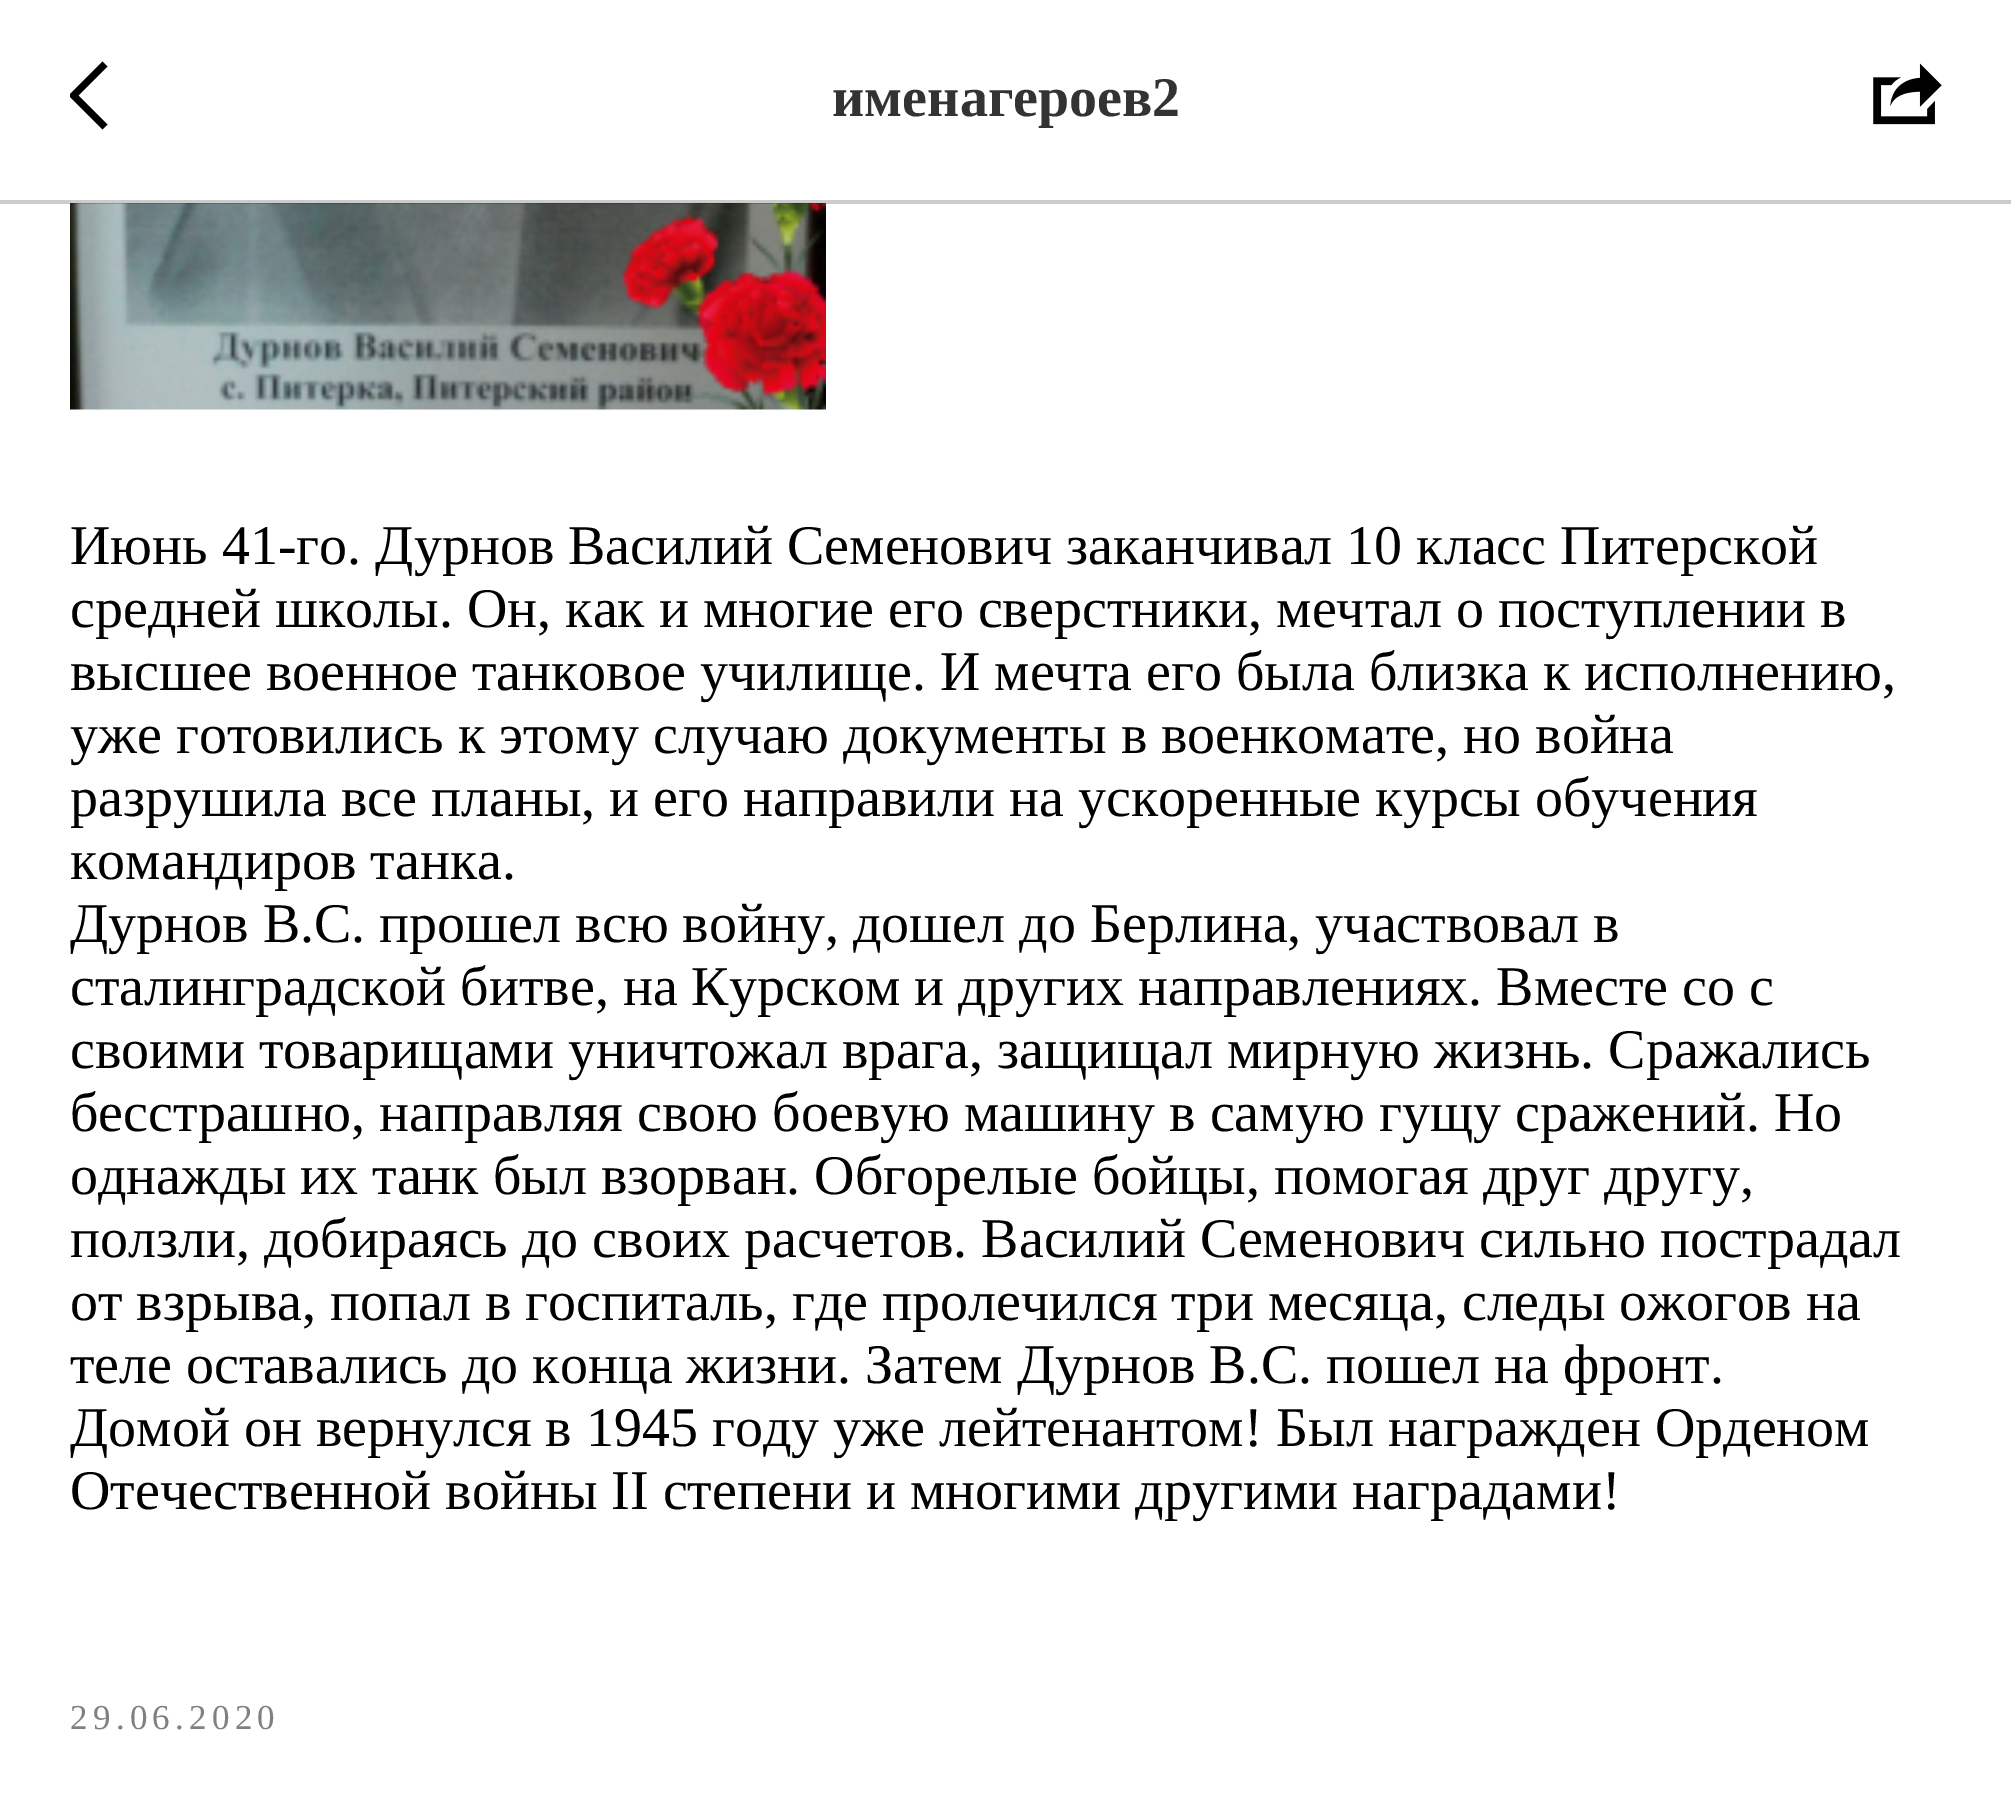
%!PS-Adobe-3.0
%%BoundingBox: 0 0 2011 1801
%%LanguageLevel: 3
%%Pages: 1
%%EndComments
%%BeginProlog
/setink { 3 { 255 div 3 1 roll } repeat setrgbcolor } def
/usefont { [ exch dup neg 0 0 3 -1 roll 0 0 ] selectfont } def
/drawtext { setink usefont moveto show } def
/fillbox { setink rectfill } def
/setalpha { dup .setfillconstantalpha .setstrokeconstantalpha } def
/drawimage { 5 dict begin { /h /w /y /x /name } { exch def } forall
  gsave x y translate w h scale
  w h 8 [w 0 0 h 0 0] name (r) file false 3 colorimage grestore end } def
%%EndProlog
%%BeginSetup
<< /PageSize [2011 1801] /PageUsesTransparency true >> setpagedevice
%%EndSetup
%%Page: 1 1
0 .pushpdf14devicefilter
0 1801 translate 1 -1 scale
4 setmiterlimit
0 0 2011 1801 255 255 255 fillbox
(assets/img2.rgb) 70 203 756 207 drawimage
0.2 setalpha
0 200 2011 4 0 0 0 fillbox
gsave
70 60 39 70 rectclip
1 setalpha
7 setlinewidth
105 127 moveto 73.5 95.5 lineto 105 64 lineto stroke
grestore
1 setalpha
(именагероев2) 832 116 /LiberationSerif-Bold 56 51 51 51 drawtext
(assets/img1.rgb) 1873 63 69 62 drawimage
(Июнь 41-го. Дурнов Василий Семенович заканчивал 10 класс Питерской) 70 564 /LiberationSerif-Regular 56 0 0 0 drawtext
(средней школы. Он, как и многие его сверстники, мечтал о поступлении в) 70 627 /LiberationSerif-Regular 56 0 0 0 drawtext
(высшее военное танковое училище. И мечта его была близка к исполнению,) 70 690 /LiberationSerif-Regular 56 0 0 0 drawtext
(уже готовились к этому случаю документы в военкомате, но война) 70 753 /LiberationSerif-Regular 56 0 0 0 drawtext
(разрушила все планы, и его направили на ускоренные курсы обучения) 70 816 /LiberationSerif-Regular 56 0 0 0 drawtext
(командиров танка.) 70 879 /LiberationSerif-Regular 56 0 0 0 drawtext
(Дурнов В.С. прошел всю войну, дошел до Берлина, участвовал в) 70 942 /LiberationSerif-Regular 56 0 0 0 drawtext
(сталинградской битве, на Курском и других направлениях. Вместе со с) 70 1005 /LiberationSerif-Regular 56 0 0 0 drawtext
(своими товарищами уничтожал врага, защищал мирную жизнь. Сражались) 70 1068 /LiberationSerif-Regular 56 0 0 0 drawtext
(бесстрашно, направляя свою боевую машину в самую гущу сражений. Но) 70 1131 /LiberationSerif-Regular 56 0 0 0 drawtext
(однажды их танк был взорван. Обгорелые бойцы, помогая друг другу,) 70 1194 /LiberationSerif-Regular 56 0 0 0 drawtext
(ползли, добираясь до своих расчетов. Василий Семенович сильно пострадал) 70 1257 /LiberationSerif-Regular 56 0 0 0 drawtext
(от взрыва, попал в госпиталь, где пролечился три месяца, следы ожогов на) 70 1320 /LiberationSerif-Regular 56 0 0 0 drawtext
(теле оставались до конца жизни. Затем Дурнов В.С. пошел на фронт.) 70 1383 /LiberationSerif-Regular 56 0 0 0 drawtext
(Домой он вернулся в 1945 году уже лейтенантом! Был награжден Орденом) 70 1446 /LiberationSerif-Regular 56 0 0 0 drawtext
(Отечественной войны II степени и многими другими наградами!) 70 1509 /LiberationSerif-Regular 56 0 0 0 drawtext
/LiberationSerif-Regular 35 usefont
128 128 128 setink
70 1729 moveto 5.25 0 (29.06.2020) ashow
.poppdf14devicefilter showpage
%%EOF
